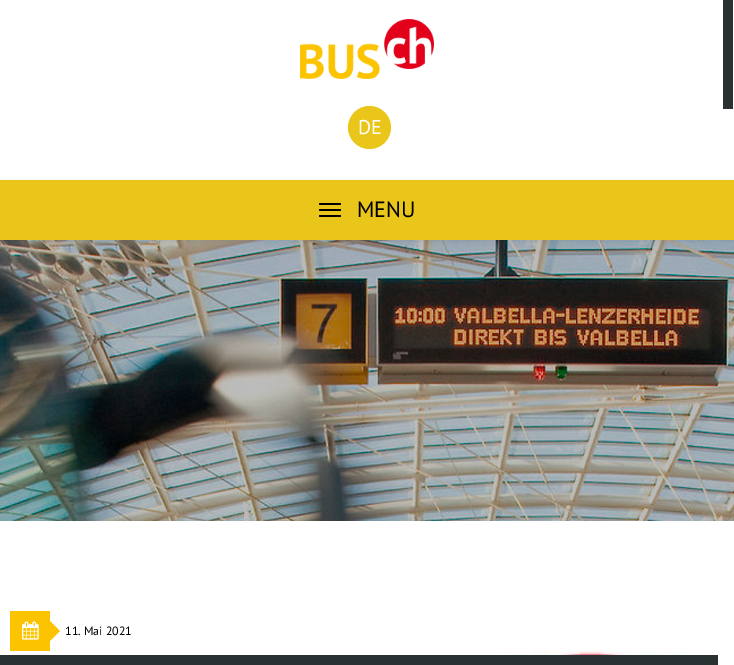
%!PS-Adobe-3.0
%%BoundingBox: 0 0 734 665
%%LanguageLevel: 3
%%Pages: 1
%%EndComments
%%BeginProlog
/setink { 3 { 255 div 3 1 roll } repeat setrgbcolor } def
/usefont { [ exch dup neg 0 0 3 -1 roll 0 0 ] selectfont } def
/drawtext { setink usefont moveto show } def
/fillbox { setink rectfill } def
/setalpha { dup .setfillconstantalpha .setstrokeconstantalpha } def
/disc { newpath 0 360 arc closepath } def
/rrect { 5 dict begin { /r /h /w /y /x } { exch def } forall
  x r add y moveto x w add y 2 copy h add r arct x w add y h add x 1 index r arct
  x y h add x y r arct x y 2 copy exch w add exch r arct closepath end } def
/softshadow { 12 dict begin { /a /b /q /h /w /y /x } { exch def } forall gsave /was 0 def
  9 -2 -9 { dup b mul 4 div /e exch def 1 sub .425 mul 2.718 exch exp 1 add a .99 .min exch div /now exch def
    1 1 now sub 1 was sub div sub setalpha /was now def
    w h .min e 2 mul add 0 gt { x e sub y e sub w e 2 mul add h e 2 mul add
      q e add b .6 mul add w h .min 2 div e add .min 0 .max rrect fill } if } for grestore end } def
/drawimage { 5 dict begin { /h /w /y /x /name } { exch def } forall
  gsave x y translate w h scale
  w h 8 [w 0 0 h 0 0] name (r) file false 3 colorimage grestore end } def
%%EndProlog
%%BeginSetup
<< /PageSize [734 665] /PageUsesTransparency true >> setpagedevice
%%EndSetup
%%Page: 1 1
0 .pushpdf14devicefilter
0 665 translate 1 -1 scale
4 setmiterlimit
0 0 734 665 255 255 255 fillbox
723 0 10 109 41 49 51 fillbox
(assets/img1.rgb) 300 19 134 60 drawimage
235 198 26 setink
369.5 127.5 21.5 disc fill
(DE) 358 134 /PTSans-Regular 20 255 255 255 drawtext
(assets/img2.rgb) 0 240 734 281 drawimage
0 0 0 setink
0 181 734 60 0 2.5 0.07 softshadow
0 180 734 60 235 198 26 fillbox
0 0 0 setink
319 203 22 2 1 rrect fill
319 209 22 2 1 rrect fill
319 215 22 2 1 rrect fill
(MENU) 357 217 /PTSans-Regular 22 0 0 0 drawtext
10 611 40 40 252 196 0 fillbox
(assets/img3.rgb) 22 621 17 19 drawimage
50 641 moveto 50 621 lineto 60 631 lineto closepath fill
(11. Mai 2021) 65 635 /PTSans-Regular 12 0 0 0 drawtext
(assets/img4.rgb) 10 651 714 14 drawimage
0 655 718 10 41 49 51 fillbox
.poppdf14devicefilter showpage
%%EOF
